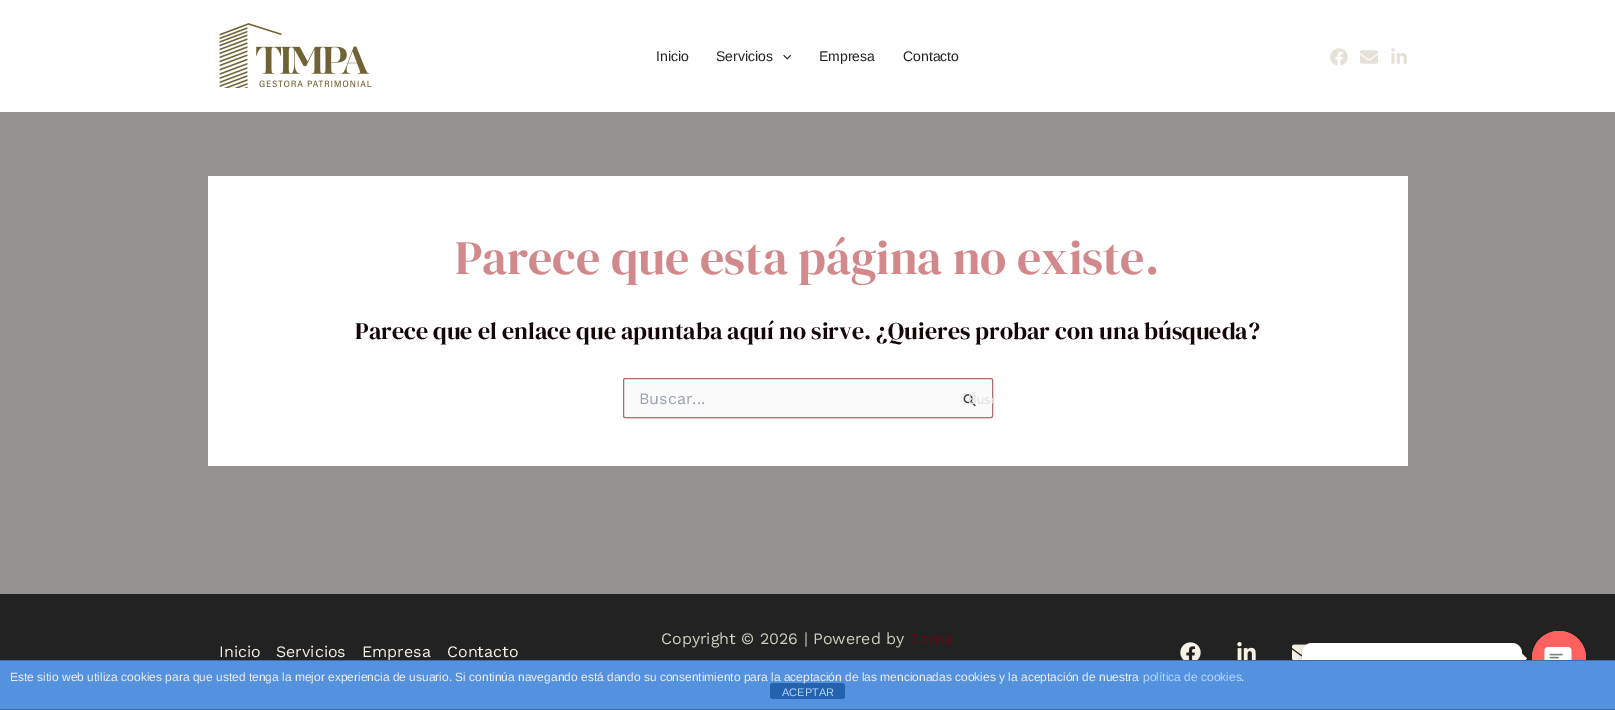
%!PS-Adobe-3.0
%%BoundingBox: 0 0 1615 710
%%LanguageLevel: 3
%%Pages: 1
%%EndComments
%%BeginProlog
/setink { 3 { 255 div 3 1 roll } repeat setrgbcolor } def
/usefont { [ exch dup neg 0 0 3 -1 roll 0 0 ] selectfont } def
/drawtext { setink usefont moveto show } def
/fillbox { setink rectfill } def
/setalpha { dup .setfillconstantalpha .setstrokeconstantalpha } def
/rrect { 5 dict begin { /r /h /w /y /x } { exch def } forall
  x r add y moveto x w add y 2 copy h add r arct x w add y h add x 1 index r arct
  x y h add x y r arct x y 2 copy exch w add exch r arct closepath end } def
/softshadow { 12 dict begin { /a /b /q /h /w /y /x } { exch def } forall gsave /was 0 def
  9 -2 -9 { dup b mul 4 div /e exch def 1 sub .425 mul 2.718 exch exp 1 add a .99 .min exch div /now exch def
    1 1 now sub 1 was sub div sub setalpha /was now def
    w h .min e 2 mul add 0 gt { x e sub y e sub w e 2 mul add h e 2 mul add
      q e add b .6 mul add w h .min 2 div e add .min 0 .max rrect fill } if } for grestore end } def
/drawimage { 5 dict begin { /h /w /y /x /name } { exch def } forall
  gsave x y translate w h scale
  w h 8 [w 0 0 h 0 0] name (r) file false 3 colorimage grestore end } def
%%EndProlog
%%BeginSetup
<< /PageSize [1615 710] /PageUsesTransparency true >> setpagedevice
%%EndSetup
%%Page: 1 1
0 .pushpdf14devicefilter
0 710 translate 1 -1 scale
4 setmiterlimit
0 0 1615 710 150 146 146 fillbox
0 0 1615 112 255 255 255 fillbox
(assets/img1.rgb) 219 23 153 65 drawimage
(Inicio) 656 61 /LiberationSans-Regular 14 34 34 34 drawtext
(Servicios) 716 61 /LiberationSans-Regular 14 34 34 34 drawtext
(assets/img2.rgb) 783 54 8 6 drawimage
(Empresa) 819 61 /LiberationSans-Regular 14 34 34 34 drawtext
(Contacto) 903 61 /LiberationSans-Regular 14 34 34 34 drawtext
(assets/img3.rgb) 1330 48 18 18 drawimage
(assets/img4.rgb) 1360 50 18 14 drawimage
(assets/img5.rgb) 1391 48 16 16 drawimage
208 176 1200 290 255 255 255 fillbox
(Parece que esta página no existe.) 455 274 /DMSerifDisplay-Regular 48 209 137 140 drawtext
(Parece que el enlace que apuntaba aquí no sirve. ¿Quieres probar con una búsqueda?) 355 339 /DMSerifDisplay-Regular 24 20 6 9 drawtext
0 0 0 setink
623 379 370 40 2 1 0.05 softshadow
250 250 250 setink
623.5 378.5 369 39 1.5 rrect gsave fill grestore
173 110 110 setink
stroke
(Buscar...) 639 404 /WorkSans-Regular 16 156 163 175 drawtext
(assets/img6.rgb) 963 394 13 13 drawimage
gsave
948 378 45 40 2 rrect clip newpath
(Busc) 968 404 /ZenMaruGothic-Medium 14 228 225 225 drawtext
grestore
0 594 1615 66 34 34 34 fillbox
(Copyright © 2026 | Powered by) 661 644 /WorkSans-Regular 16 207 206 192 drawtext
(Tema) 910 644 /WorkSans-Regular 16 100 8 25 drawtext
(Inicio) 219 657 /WorkSans-Regular 16 246 241 229 drawtext
(Servicios) 276 657 /WorkSans-Regular 16 246 241 229 drawtext
(Empresa) 362 657 /WorkSans-Regular 16 246 241 229 drawtext
(Contacto) 447 657 /WorkSans-Regular 16 246 241 229 drawtext
(assets/img7.rgb) 1180 642 21 18 drawimage
(assets/img8.rgb) 1237 642 19 18 drawimage
(assets/img9.rgb) 1292 644 16 16 drawimage
0 0 0 setink
1302 644 220 31 10 4 0.15 softshadow
255 255 255 setink
1302 643 220 31 10 rrect fill
1522 663.5 moveto 1522 653.5 lineto 1527 658.5 lineto closepath fill
0 0 0 setink
1532 634 54 54 27 3 0.25 softshadow
(assets/img10.rgb) 1532 631 54 29 drawimage
0 661 1615 48 84 146 224 fillbox
0 660 1615 1 63 109 167 fillbox
0 709 1615 1 63 109 167 fillbox
36 98 176 setink
770 683 75 16 3 rrect fill
(Este sitio web utiliza cookies para que usted tenga la mejor experiencia de usuario. Si continúa navegando está dando su consentimiento para la aceptación de las mencionadas cookies y la aceptación de nuestra) 10 681 /LiberationSans-Regular 12 238 238 238 drawtext
(política de cookies) 1143 681 /LiberationSans-Regular 12 183 215 255 drawtext
(.) 1241 681 /LiberationSans-Regular 12 238 238 238 drawtext
(ACEPTAR) 782 696 /LiberationSans-Regular 11 183 215 255 drawtext
.poppdf14devicefilter showpage
%%EOF
